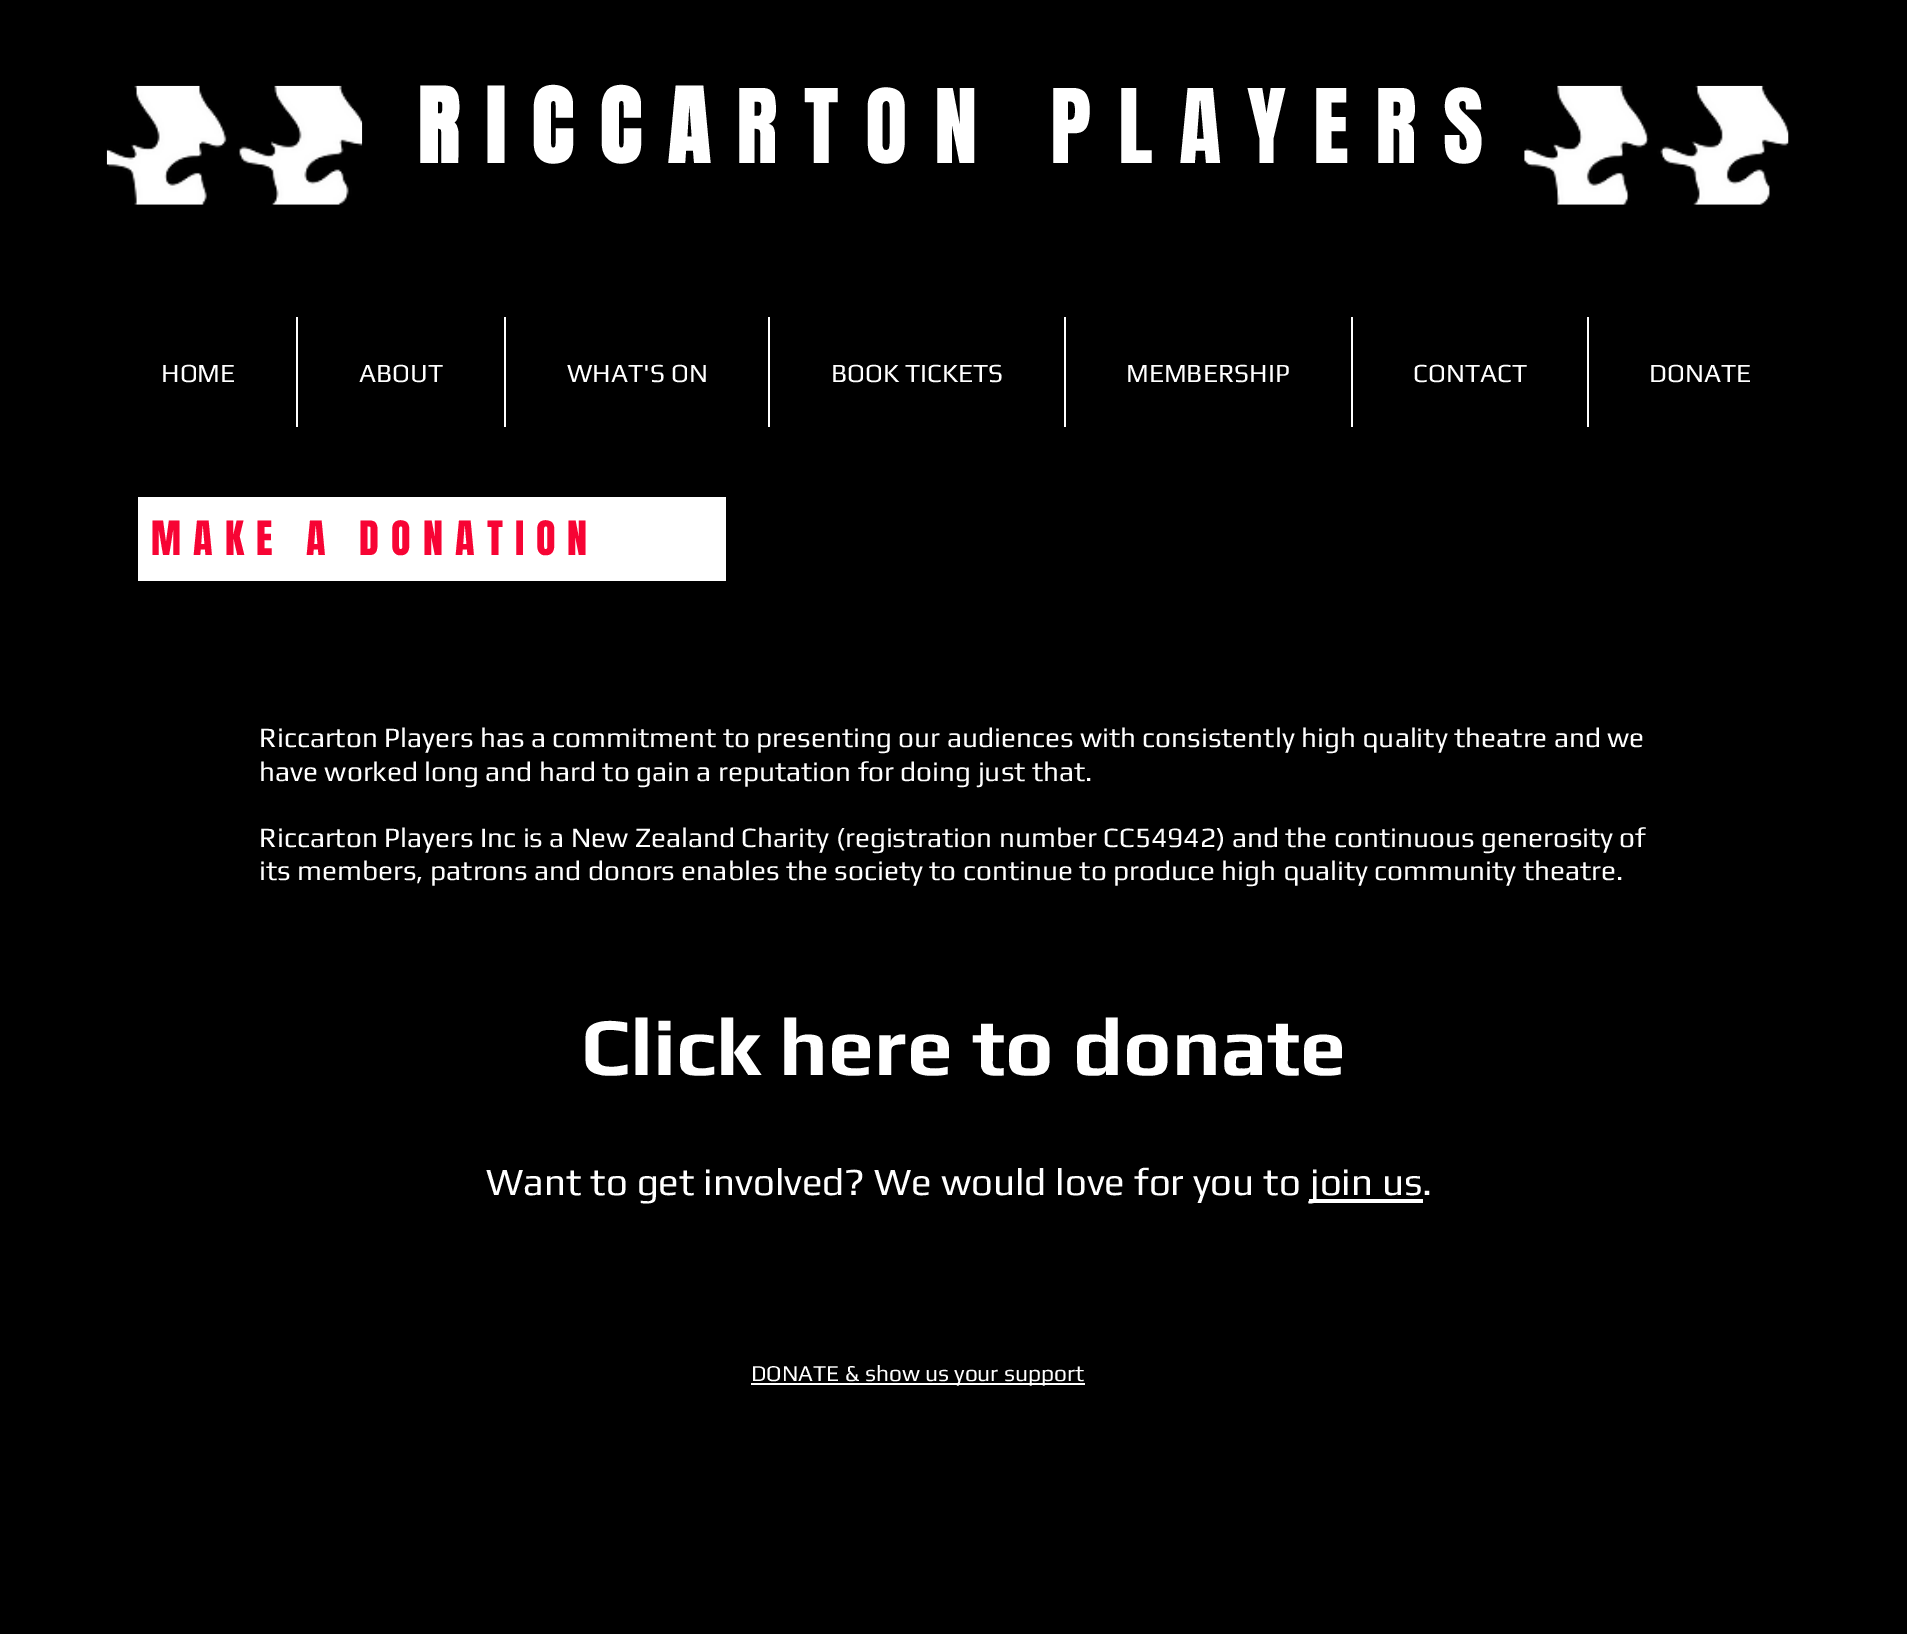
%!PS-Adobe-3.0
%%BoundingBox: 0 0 1907 1634
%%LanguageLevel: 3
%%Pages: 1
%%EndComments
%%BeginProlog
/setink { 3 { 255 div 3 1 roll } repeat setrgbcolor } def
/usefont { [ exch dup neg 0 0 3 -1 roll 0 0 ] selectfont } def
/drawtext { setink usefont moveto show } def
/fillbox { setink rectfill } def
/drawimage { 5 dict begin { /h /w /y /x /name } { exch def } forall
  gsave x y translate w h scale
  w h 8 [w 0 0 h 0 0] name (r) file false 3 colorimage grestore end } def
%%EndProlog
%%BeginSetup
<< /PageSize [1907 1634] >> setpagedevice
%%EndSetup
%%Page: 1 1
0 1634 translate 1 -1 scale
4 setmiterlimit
0 0 1907 1634 0 0 0 fillbox
(assets/img1.rgb) 106 85 257 120 drawimage
/Anton-Bold 87.5 usefont
255 255 255 setink
417 163 moveto 26.25 0 (RICCA) ashow
/Anton-Regular 87.5 usefont
736 163 moveto 26.25 0 (RTON PLAYERS) ashow
(assets/img2.rgb) 1524 85 265 120 drawimage
(HOME) 161 382 /Play-Regular 26.25 255 255 255 drawtext
296 317 2 110 255 255 255 fillbox
(ABOUT) 359 382 /Play-Regular 26.25 255 255 255 drawtext
504 317 2 110 255 255 255 fillbox
(WHAT'S ON) 567 382 /Play-Regular 26.25 255 255 255 drawtext
768 317 2 110 255 255 255 fillbox
(BOOK TICKETS) 831 382 /Play-Regular 26.25 255 255 255 drawtext
1064 317 2 110 255 255 255 fillbox
(MEMBERSHIP) 1126 382 /Play-Regular 26.25 255 255 255 drawtext
1351 317 2 110 255 255 255 fillbox
(CONTACT) 1413 382 /Play-Regular 26.25 255 255 255 drawtext
1587 317 2 110 255 255 255 fillbox
(DONATE) 1649 382 /Play-Regular 26.25 255 255 255 drawtext
138 497 588 84 255 255 255 fillbox
/Anton-Regular 40.25 usefont
247 4 52 setink
151 555 moveto 12.1 0 (MAKE A DONATION) ashow
(Riccarton Players has a commitment to presenting our audiences with consistently high quality theatre and we) 259 747 /Play-Regular 28 255 255 255 drawtext
(have worked long and hard to gain a reputation for doing just that.) 259 781 /Play-Regular 28 255 255 255 drawtext
(Riccarton Players Inc is a New Zealand Charity \(registration number CC54942\) and the continuous generosity of) 259 847 /Play-Regular 28 255 255 255 drawtext
(its members, patrons and donors enables the society to continue to produce high quality community theatre.) 259 880 /Play-Regular 28 255 255 255 drawtext
(Click here to donate) 581 1075 /Play-Bold 82.25 255 255 255 drawtext
(Want to get involved? We would love for you to) 486 1195 /Play-Regular 38.5 255 255 255 drawtext
1309 1199 114 4 255 255 255 fillbox
(join us.) 1310 1195 /Play-Regular 38.5 255 255 255 drawtext
751 1383 334 2 255 255 255 fillbox
(DONATE & show us your support) 751 1381 /Play-Regular 22.75 255 255 255 drawtext
showpage
%%EOF
